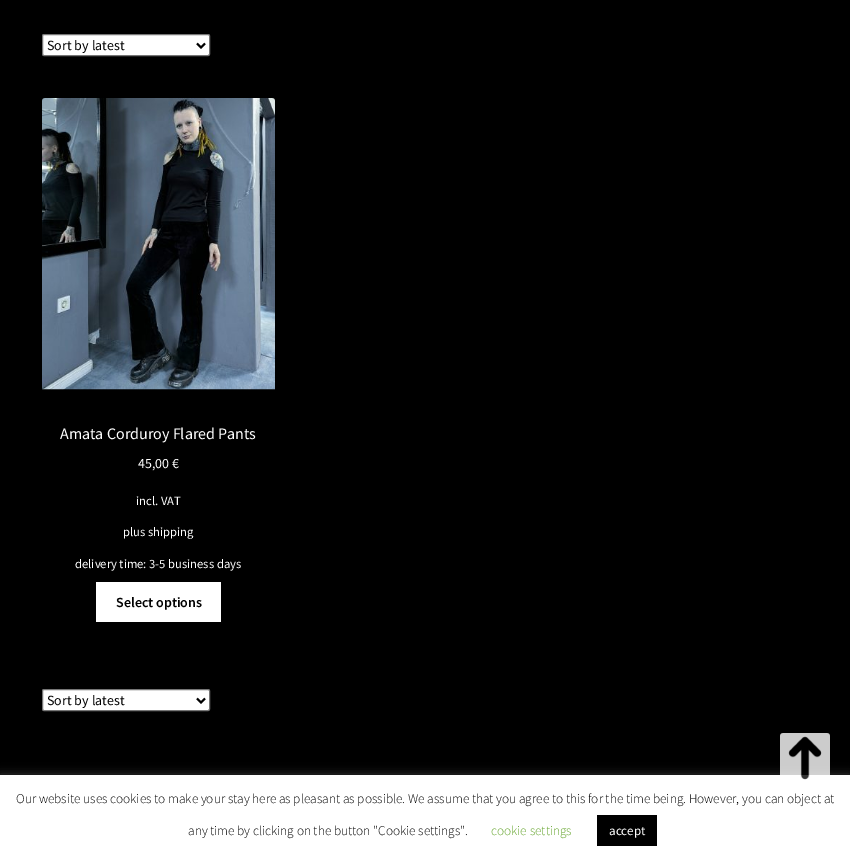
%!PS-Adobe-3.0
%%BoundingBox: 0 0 850 863
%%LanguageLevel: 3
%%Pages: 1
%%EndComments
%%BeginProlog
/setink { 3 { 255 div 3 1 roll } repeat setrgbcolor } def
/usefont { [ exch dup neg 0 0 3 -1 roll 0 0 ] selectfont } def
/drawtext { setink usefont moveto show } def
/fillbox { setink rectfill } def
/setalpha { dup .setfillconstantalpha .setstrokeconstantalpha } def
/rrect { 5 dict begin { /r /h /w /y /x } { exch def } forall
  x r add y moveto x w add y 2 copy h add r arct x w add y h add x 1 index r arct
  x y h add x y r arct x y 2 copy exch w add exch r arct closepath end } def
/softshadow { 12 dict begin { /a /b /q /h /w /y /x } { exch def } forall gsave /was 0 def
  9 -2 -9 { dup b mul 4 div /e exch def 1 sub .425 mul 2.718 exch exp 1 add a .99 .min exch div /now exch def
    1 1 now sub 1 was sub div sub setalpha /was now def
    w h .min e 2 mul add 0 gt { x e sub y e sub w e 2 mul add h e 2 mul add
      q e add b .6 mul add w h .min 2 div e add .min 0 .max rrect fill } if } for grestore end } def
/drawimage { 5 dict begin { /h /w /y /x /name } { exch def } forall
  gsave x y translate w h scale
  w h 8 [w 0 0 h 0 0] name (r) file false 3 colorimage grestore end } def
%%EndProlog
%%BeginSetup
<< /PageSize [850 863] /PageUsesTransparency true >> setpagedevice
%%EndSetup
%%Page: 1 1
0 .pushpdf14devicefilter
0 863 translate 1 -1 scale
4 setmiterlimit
0 0 850 863 0 0 0 fillbox
255 255 255 setink
42.5 34.5 167 21 1.5 rrect gsave fill grestore
118 118 118 setink
stroke
0 0 0 setink
2 setlinewidth
197 43.5 moveto 201 47.5 lineto 205 43.5 lineto stroke
(Sort by latest) 47 50 /SourceSansPro-Regular 14 0 0 0 drawtext
(assets/img1.rgb) 42 98 233 292 drawimage
(Amata Corduroy Flared Pants) 60 439 /SourceSansPro-Regular 16 255 255 255 drawtext
(45,00 €) 138 468 /SourceSansPro-Regular 14 255 255 255 drawtext
(incl. VAT) 136 505 /SourceSansPro-Regular 12.6 255 255 255 drawtext
(plus shipping) 123 536 /SourceSansPro-Regular 12.6 255 255 255 drawtext
(delivery time: 3-5 business days) 75 568 /SourceSansPro-Regular 12.6 255 255 255 drawtext
96 582 125 40 255 255 255 fillbox
(Select options) 116 607 /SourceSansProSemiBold-SemiBold 14 0 0 0 drawtext
255 255 255 setink
42.5 689.5 167 21 1.5 rrect gsave fill grestore
118 118 118 setink
1 setlinewidth
stroke
0 0 0 setink
2 setlinewidth
197 698.5 moveto 201 702.5 lineto 205 698.5 lineto stroke
(Sort by latest) 47 705 /SourceSansPro-Regular 14 0 0 0 drawtext
172 171 171 setink
0 774 850 88 0 5 0.3 softshadow
0 775 850 88 255 255 255 fillbox
(assets/img2.rgb) 780 733 50 47 drawimage
(Our website uses cookies to make your stay here as pleasant as possible. We assume that you agree to this for the time being. However, you can object at) 16 803 /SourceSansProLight-Light 13.33 0 0 0 drawtext
(any time by clicking on the button "Cookie settings".) 188 835 /SourceSansProLight-Light 13.33 0 0 0 drawtext
(cookie settings) 491 835 /SourceSansProLight-Light 13.33 98 163 41 drawtext
597 815 60 31 0 0 0 fillbox
(accept) 609 835 /SourceSansPro-Regular 13 255 255 255 drawtext
.poppdf14devicefilter showpage
%%EOF
